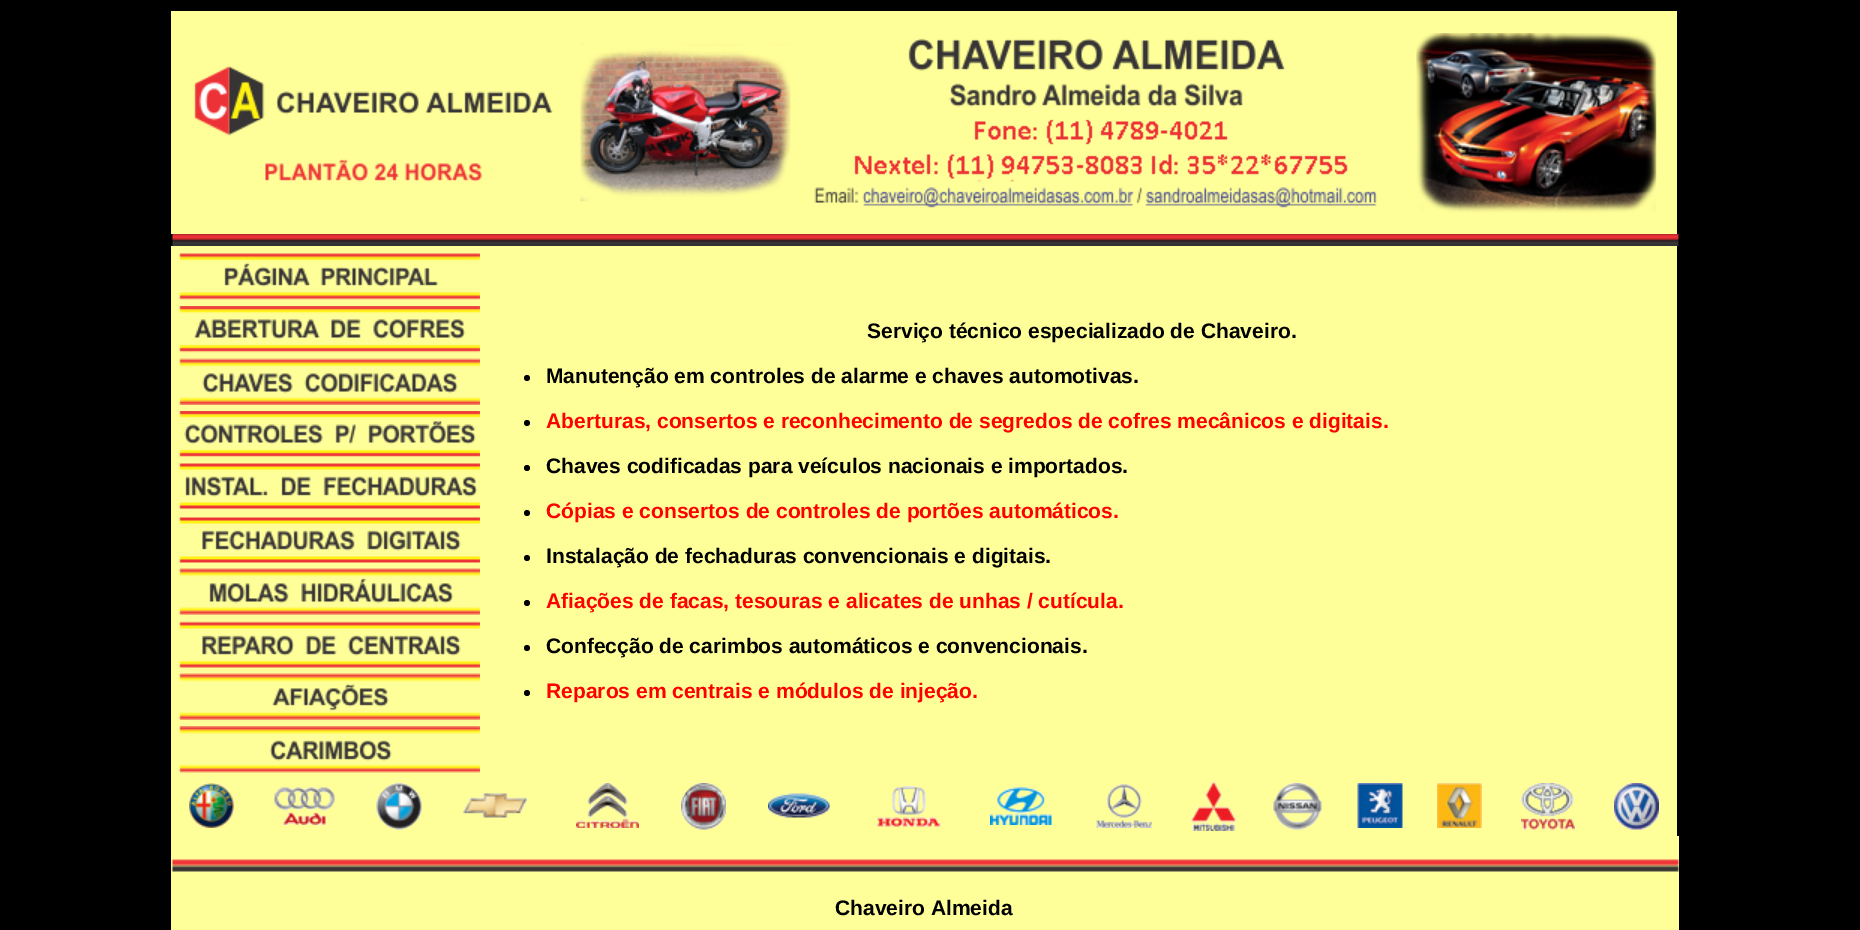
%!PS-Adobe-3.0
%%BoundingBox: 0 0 1860 930
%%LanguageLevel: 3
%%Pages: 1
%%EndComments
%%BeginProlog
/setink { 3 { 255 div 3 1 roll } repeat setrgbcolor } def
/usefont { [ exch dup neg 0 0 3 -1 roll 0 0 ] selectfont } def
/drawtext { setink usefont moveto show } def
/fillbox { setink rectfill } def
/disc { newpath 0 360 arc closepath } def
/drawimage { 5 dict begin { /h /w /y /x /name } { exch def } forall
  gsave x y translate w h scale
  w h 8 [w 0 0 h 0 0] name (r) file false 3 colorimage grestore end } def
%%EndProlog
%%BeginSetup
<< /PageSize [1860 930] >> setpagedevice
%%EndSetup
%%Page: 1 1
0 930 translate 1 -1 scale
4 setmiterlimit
0 0 1860 930 0 0 0 fillbox
171 11 1506 223 255 255 153 fillbox
(assets/img1.rgb) 194 65 359 117 drawimage
(assets/img2.rgb) 580 43 211 159 drawimage
(assets/img3.rgb) 814 38 563 170 drawimage
(assets/img4.rgb) 1416 33 241 180 drawimage
(assets/img5.rgb) 171 234 1508 12 drawimage
171 246 1506 590 255 255 153 fillbox
(assets/img6.rgb) 178 253 302 47 drawimage
(assets/img7.rgb) 178 306 302 47 drawimage
(assets/img8.rgb) 178 358 302 47 drawimage
(assets/img9.rgb) 178 411 302 47 drawimage
(assets/img10.rgb) 178 463 302 47 drawimage
(assets/img11.rgb) 178 517 302 46 drawimage
(assets/img12.rgb) 178 568 302 47 drawimage
(assets/img13.rgb) 178 621 302 47 drawimage
(assets/img14.rgb) 178 673 302 47 drawimage
(assets/img15.rgb) 178 726 302 47 drawimage
(Serviço técnico especializado de Chaveiro.) 867 338 /LiberationSans-Bold 21 0 0 0 drawtext
527 378 3 disc fill
(Manutenção em controles de alarme e chaves automotivas.) 546 383 /LiberationSans-Bold 21 0 0 0 drawtext
527 423 3 disc fill
(Aberturas, consertos e reconhecimento de segredos de cofres mecânicos e digitais.) 546 428 /LiberationSans-Bold 21 255 0 0 drawtext
0 0 0 setink
527 468 3 disc fill
(Chaves codificadas para veículos nacionais e importados.) 546 473 /LiberationSans-Bold 21 0 0 0 drawtext
527 513 3 disc fill
(Cópias e consertos de controles de portões automáticos.) 546 518 /LiberationSans-Bold 21 255 0 0 drawtext
0 0 0 setink
527 558 3 disc fill
(Instalação de fechaduras convencionais e digitais.) 546 563 /LiberationSans-Bold 21 0 0 0 drawtext
527 603 3 disc fill
(Afiações de facas, tesouras e alicates de unhas / cutícula.) 546 608 /LiberationSans-Bold 21 255 0 0 drawtext
0 0 0 setink
527 648 3 disc fill
(Confecção de carimbos automáticos e convencionais.) 546 653 /LiberationSans-Bold 21 0 0 0 drawtext
527 693 3 disc fill
(Reparos em centrais e módulos de injeção.) 546 698 /LiberationSans-Bold 21 255 0 0 drawtext
(assets/img16.rgb) 189 783 45 45 drawimage
(assets/img17.rgb) 274 787 61 38 drawimage
(assets/img18.rgb) 376 783 46 47 drawimage
(assets/img19.rgb) 463 793 64 25 drawimage
(assets/img20.rgb) 576 783 63 45 drawimage
(assets/img21.rgb) 681 783 45 47 drawimage
(assets/img22.rgb) 768 793 62 25 drawimage
(assets/img23.rgb) 877 786 64 41 drawimage
(assets/img24.rgb) 990 787 62 38 drawimage
(assets/img25.rgb) 1096 784 56 44 drawimage
(assets/img26.rgb) 1191 781 45 50 drawimage
(assets/img27.rgb) 1273 783 49 47 drawimage
(assets/img28.rgb) 1357 783 46 45 drawimage
(assets/img29.rgb) 1437 783 45 45 drawimage
(assets/img30.rgb) 1521 783 54 47 drawimage
(assets/img31.rgb) 1614 783 45 47 drawimage
171 836 1508 94 255 255 153 fillbox
(assets/img32.rgb) 171 859 1508 13 drawimage
(Chaveiro Almeida) 835 915 /LiberationSans-Bold 21 0 0 0 drawtext
showpage
%%EOF
